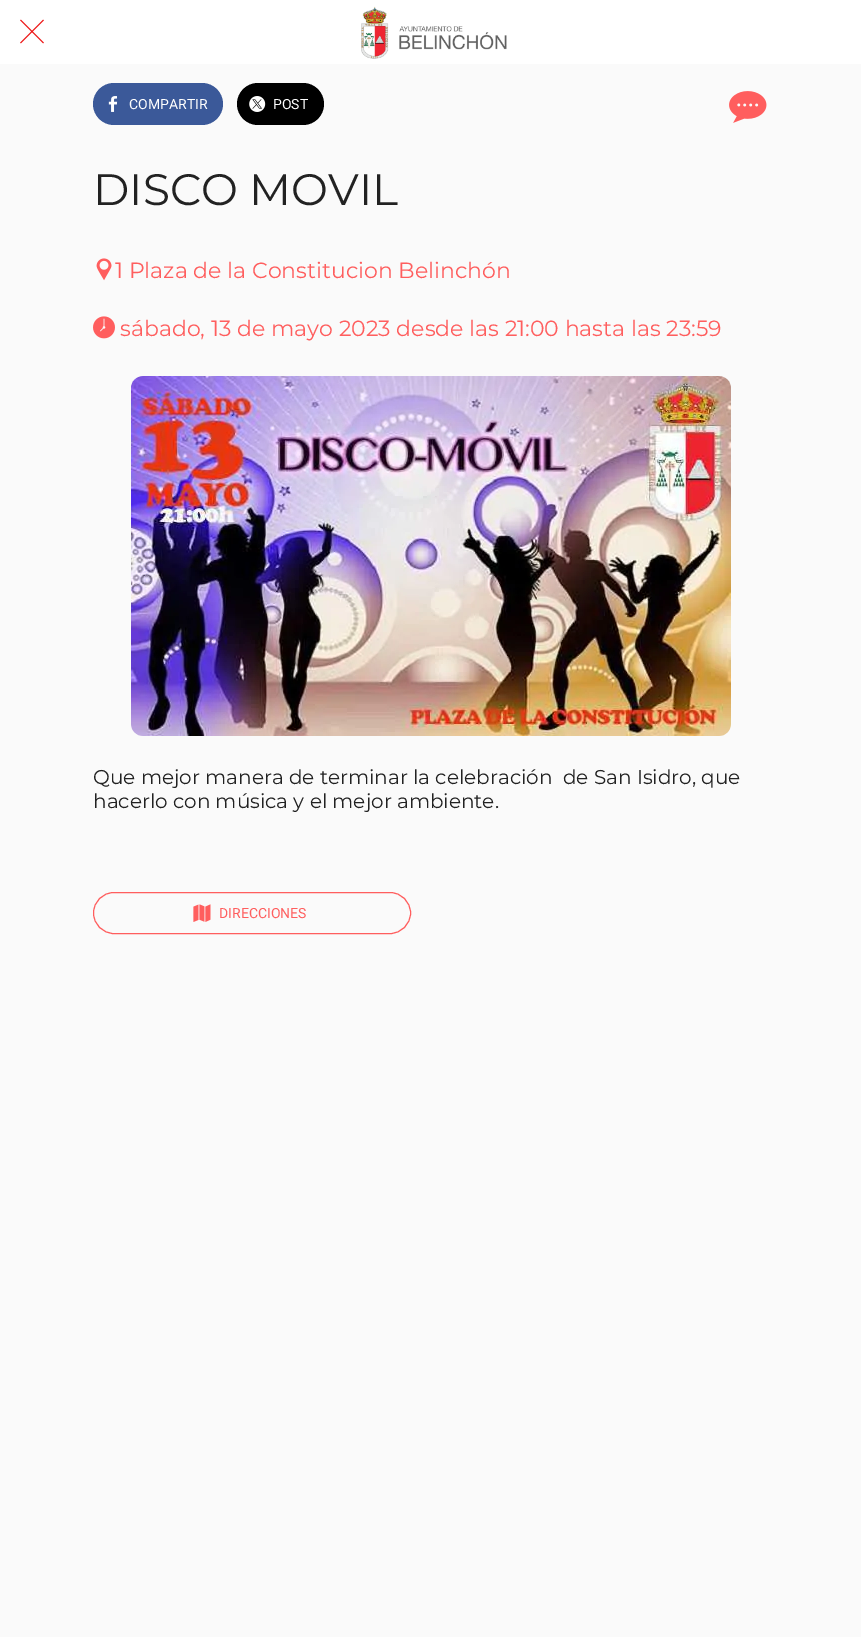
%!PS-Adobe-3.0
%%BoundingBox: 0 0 861 1637
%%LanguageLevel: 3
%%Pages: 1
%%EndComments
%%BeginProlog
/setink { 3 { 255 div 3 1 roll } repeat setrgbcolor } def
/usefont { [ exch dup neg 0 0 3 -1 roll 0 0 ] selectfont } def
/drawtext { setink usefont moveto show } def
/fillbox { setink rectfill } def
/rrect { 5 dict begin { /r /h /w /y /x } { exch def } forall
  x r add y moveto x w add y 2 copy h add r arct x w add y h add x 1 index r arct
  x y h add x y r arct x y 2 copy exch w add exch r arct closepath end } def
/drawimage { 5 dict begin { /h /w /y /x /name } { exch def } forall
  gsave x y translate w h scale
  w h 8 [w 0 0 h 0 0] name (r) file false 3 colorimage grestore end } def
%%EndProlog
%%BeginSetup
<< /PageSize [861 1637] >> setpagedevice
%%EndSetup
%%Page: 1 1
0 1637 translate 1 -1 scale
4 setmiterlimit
0 0 861 1637 250 250 250 fillbox
0 0 861 64 255 255 255 fillbox
(assets/img1.rgb) 20 19 24 25 drawimage
(assets/img2.rgb) 361 6 146 53 drawimage
59 89 153 setink
93 83 130 42 21 rrect fill
(assets/img3.rgb) 108 96 10 16 drawimage
(COMPARTIR) 129 109 /Roboto-Regular 14 255 255 255 drawtext
0 0 0 setink
237 83 87 42 21 rrect fill
(assets/img4.rgb) 249 96 17 16 drawimage
(POST) 273 109 /Roboto-Regular 14 255 255 255 drawtext
(assets/img5.rgb) 729 91 38 32 drawimage
(DISCO MOVIL) 93 205 /Montserrat-Regular 44 34 34 34 drawtext
(assets/img6.rgb) 96 258 16 23 drawimage
(1 Plaza de la Constitucion Belinchón) 115 278 /Montserrat-Regular 22 255 94 94 drawtext
(assets/img7.rgb) 93 316 22 23 drawimage
(sábado, 13 de mayo 2023 desde las 21:00 hasta las 23:59) 120 336 /Montserrat-Regular 22 255 94 94 drawtext
(assets/img8.rgb) 131 376 600 360 drawimage
(Que mejor manera de terminar la celebración  de San Isidro, que) 93 784 /Montserrat-Regular 20 34 34 34 drawtext
(hacerlo con música y el mejor ambiente.) 93 808 /Montserrat-Regular 20 34 34 34 drawtext
255 94 94 setink
93.5 892.5 317 41 20.5 rrect stroke
(assets/img9.rgb) 193 904 18 18 drawimage
(DIRECCIONES) 219 918 /Roboto-Regular 14 255 94 94 drawtext
showpage
%%EOF
